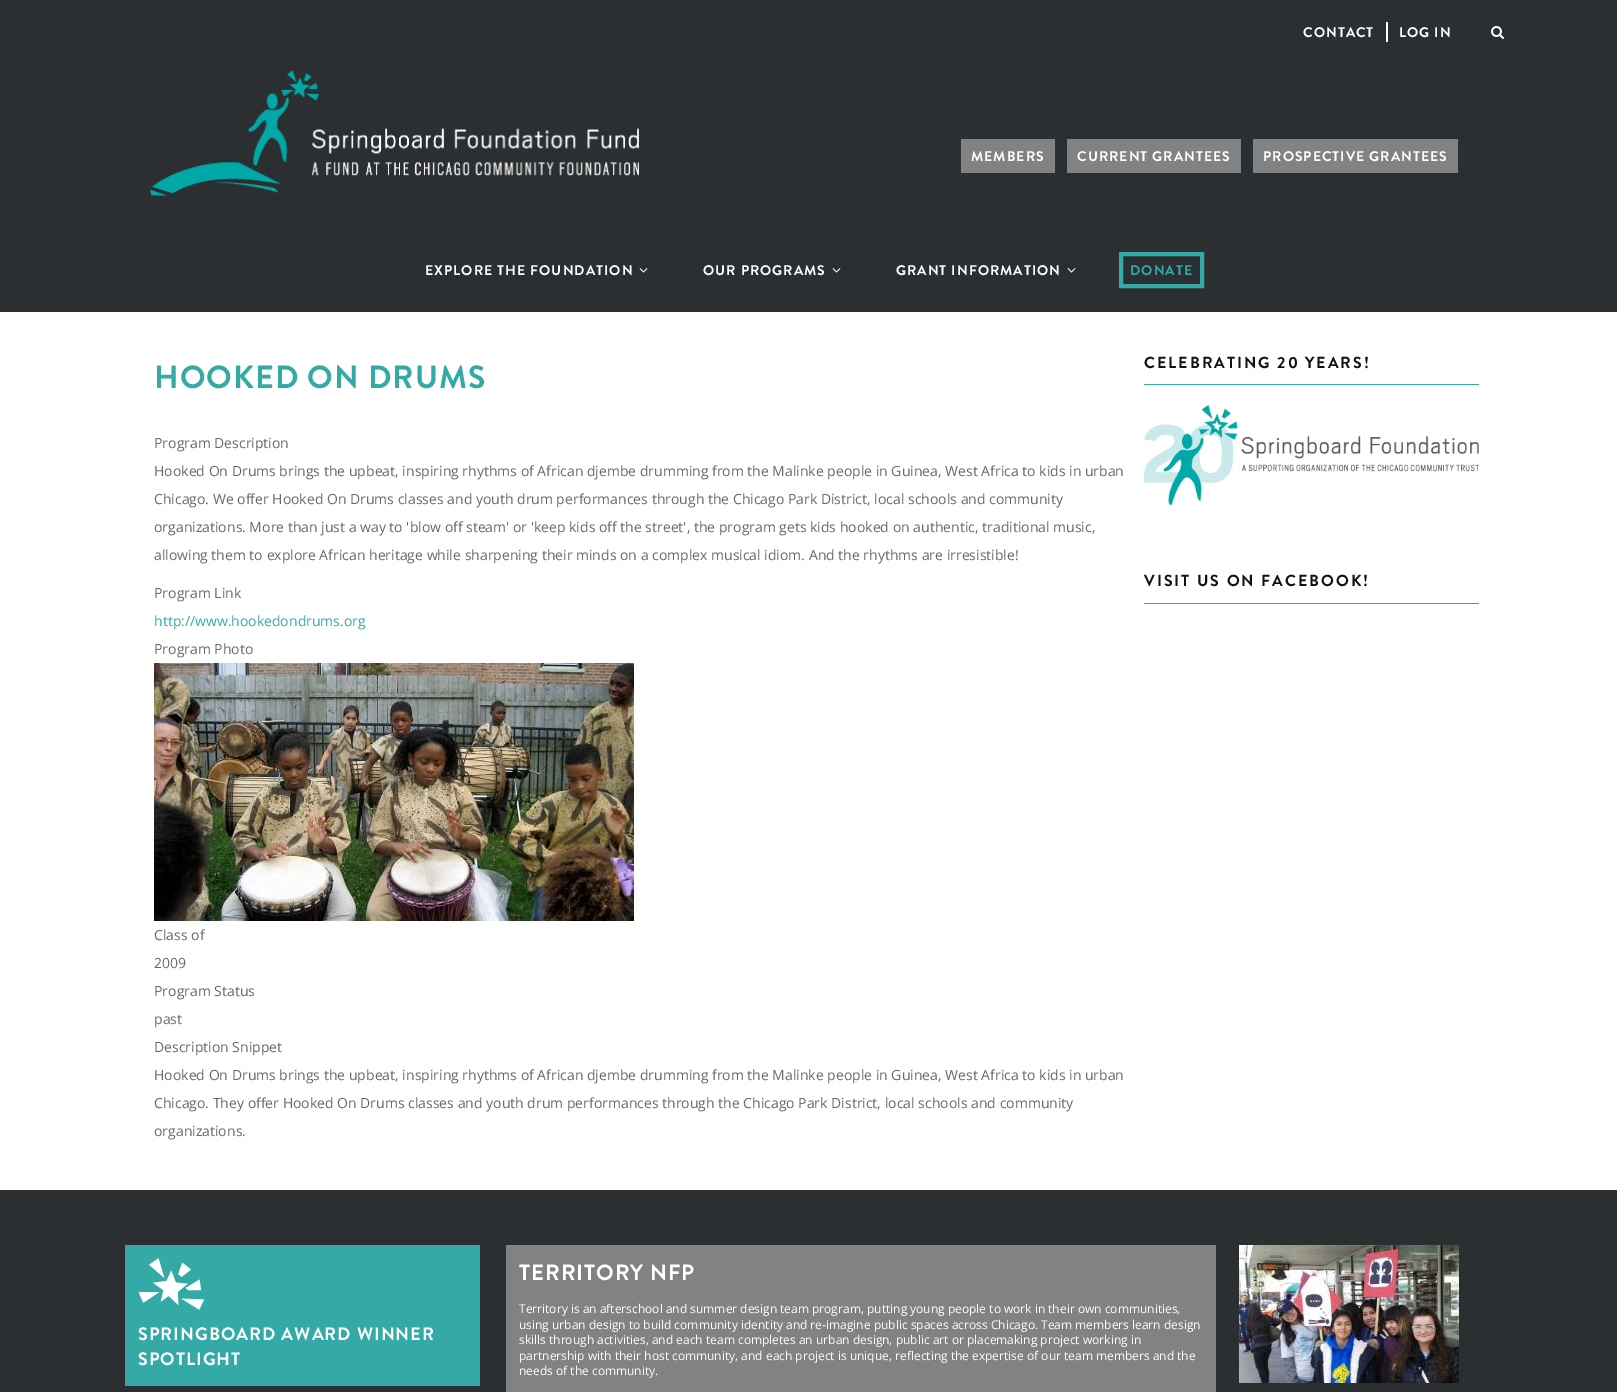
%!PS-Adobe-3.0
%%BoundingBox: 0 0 1617 1392
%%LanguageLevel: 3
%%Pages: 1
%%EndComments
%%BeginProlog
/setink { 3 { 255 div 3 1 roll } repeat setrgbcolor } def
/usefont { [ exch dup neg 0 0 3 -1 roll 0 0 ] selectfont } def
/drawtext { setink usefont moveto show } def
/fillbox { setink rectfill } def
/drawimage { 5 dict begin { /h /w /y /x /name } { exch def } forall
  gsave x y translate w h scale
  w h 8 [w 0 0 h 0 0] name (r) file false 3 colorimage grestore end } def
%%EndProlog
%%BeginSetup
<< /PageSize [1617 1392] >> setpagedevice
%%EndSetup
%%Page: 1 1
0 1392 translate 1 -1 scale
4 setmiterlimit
0 0 1617 1392 255 255 255 fillbox
0 0 1617 312 44 47 49 fillbox
(assets/img1.rgb) 150 70 489 126 drawimage
/BrandonGrotesque-Bold 14 usefont
255 255 255 setink
1303 37 moveto 1 0 (CONTACT) ashow
1386 22 2 20 255 255 255 fillbox
1399 37 moveto 1 0 (LOG IN) ashow
961 139 94 34 128 130 131 fillbox
255 255 255 setink
971 161 moveto 1 0 (MEMBERS) ashow
1067 139 174 34 128 130 131 fillbox
255 255 255 setink
1077 161 moveto 1 0 (CURRENT GRANTEES) ashow
1253 139 205 34 128 130 131 fillbox
255 255 255 setink
1263 161 moveto 1 0 (PROSPECTIVE GRANTEES) ashow
425 275 moveto 1 0 (EXPLORE THE FOUNDATION) ashow
(assets/img2.rgb) 639 268 9 5 drawimage
703 275 moveto 1 0 (OUR PROGRAMS) ashow
(assets/img2.rgb) 832 268 9 5 drawimage
896 275 moveto 1 0 (GRANT INFORMATION) ashow
(assets/img2.rgb) 1067 268 9 5 drawimage
52 170 166 setink
4 setlinewidth
1121 254 81 32 rectstroke
1130 275 moveto 1 0 (DONATE) ashow
(assets/img3.rgb) 1491 26 13 13 drawimage
/BrandonGrotesque-Bold 32 usefont
154 388 moveto 1 0 (HOOKED ON DRUMS) ashow
(Program Description) 154 448 /OpenSans-Regular 14 105 105 105 drawtext
(Hooked On Drums brings the upbeat, inspiring rhythms of African djembe drumming from the Malinke people in Guinea, West Africa to kids in urban) 154 476 /OpenSans-Regular 14 105 105 105 drawtext
(Chicago. We offer Hooked On Drums classes and youth drum performances through the Chicago Park District, local schools and community) 154 504 /OpenSans-Regular 14 105 105 105 drawtext
(organizations. More than just a way to 'blow off steam' or 'keep kids off the street', the program gets kids hooked on authentic, traditional music,) 154 532 /OpenSans-Regular 14 105 105 105 drawtext
(allowing them to explore African heritage while sharpening their minds on a complex musical idiom. And the rhythms are irresistible!) 154 560 /OpenSans-Regular 14 105 105 105 drawtext
(Program Link) 154 598 /OpenSans-Regular 14 105 105 105 drawtext
(http://www.hookedondrums.org) 154 626 /OpenSans-Regular 14 52 170 166 drawtext
(Program Photo) 154 654 /OpenSans-Regular 14 105 105 105 drawtext
(assets/img4.rgb) 154 663 480 258 drawimage
(Class of) 154 940 /OpenSans-Regular 14 105 105 105 drawtext
(2009) 154 968 /OpenSans-Regular 14 105 105 105 drawtext
(Program Status) 154 996 /OpenSans-Regular 14 105 105 105 drawtext
(past) 154 1024 /OpenSans-Regular 14 105 105 105 drawtext
(Description Snippet) 154 1052 /OpenSans-Regular 14 105 105 105 drawtext
(Hooked On Drums brings the upbeat, inspiring rhythms of African djembe drumming from the Malinke people in Guinea, West Africa to kids in urban) 154 1080 /OpenSans-Regular 14 105 105 105 drawtext
(Chicago. They offer Hooked On Drums classes and youth drum performances through the Chicago Park District, local schools and community) 154 1108 /OpenSans-Regular 14 105 105 105 drawtext
(organizations.) 154 1136 /OpenSans-Regular 14 105 105 105 drawtext
1144 384 335 1 52 170 166 fillbox
/BrandonGrotesque-Bold 16 usefont
18 18 18 setink
1144 368 moveto 2 0 (CELEBRATING 20 YEARS!) ashow
(assets/img5.rgb) 1144 405 335 100 drawimage
1144 603 335 1 52 170 166 fillbox
18 18 18 setink
1144 586 moveto 2 0 (VISIT US ON FACEBOOK!) ashow
0 1190 1617 202 44 47 49 fillbox
125 1245 355 141 52 170 166 fillbox
(assets/img6.rgb) 138 1258 67 52 drawimage
/BrandonGrotesque-Bold 18 usefont
255 255 255 setink
138 1340 moveto 1 0 (SPRINGBOARD AWARD WINNER) ashow
138 1365 moveto 1 0 (SPOTLIGHT) ashow
506 1245 710 147 128 130 131 fillbox
/BrandonGrotesque-Bold 22 usefont
255 255 255 setink
519 1280 moveto 1 0 (TERRITORY NFP) ashow
(Territory is an afterschool and summer design team program, putting young people to work in their own communities,) 519 1313 /OpenSans-Regular 12 255 255 255 drawtext
(using urban design to build community identity and re-imagine public spaces across Chicago. Team members learn design) 519 1329 /OpenSans-Regular 12 255 255 255 drawtext
(skills through activities, and each team completes an urban design, public art or placemaking project working in) 519 1344 /OpenSans-Regular 12 255 255 255 drawtext
(partnership with their host community, and each project is unique, reflecting the expertise of our team members and the) 519 1360 /OpenSans-Regular 12 255 255 255 drawtext
(needs of the community.) 519 1375 /OpenSans-Regular 12 255 255 255 drawtext
(assets/img7.rgb) 1239 1245 220 138 drawimage
showpage
%%EOF
